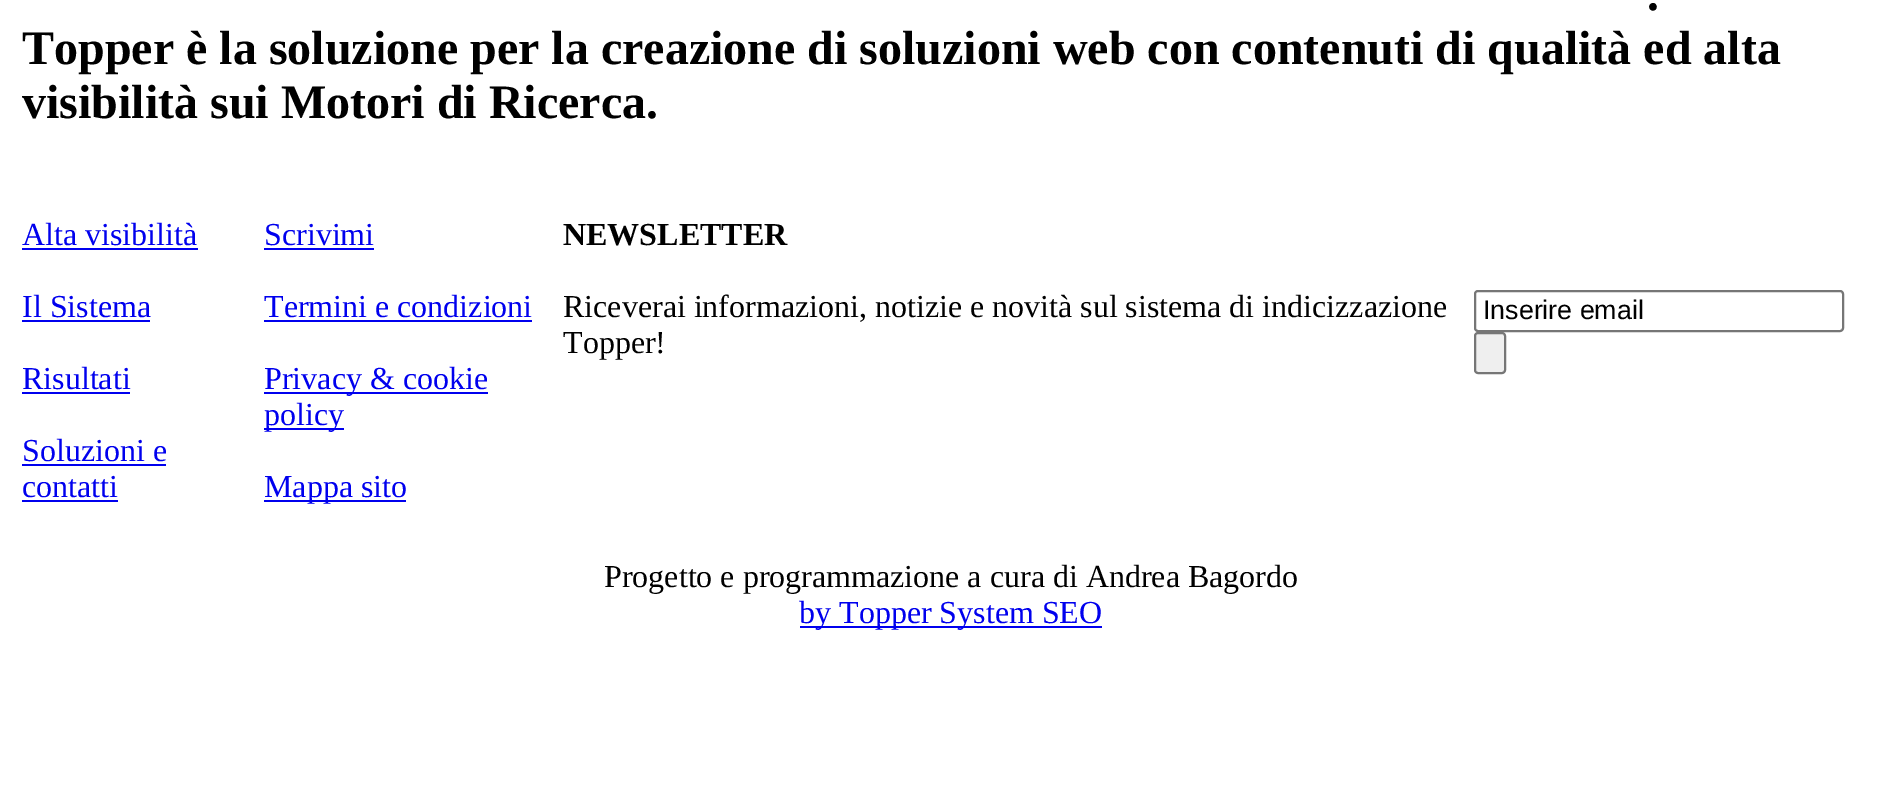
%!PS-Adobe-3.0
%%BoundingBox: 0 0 1902 789
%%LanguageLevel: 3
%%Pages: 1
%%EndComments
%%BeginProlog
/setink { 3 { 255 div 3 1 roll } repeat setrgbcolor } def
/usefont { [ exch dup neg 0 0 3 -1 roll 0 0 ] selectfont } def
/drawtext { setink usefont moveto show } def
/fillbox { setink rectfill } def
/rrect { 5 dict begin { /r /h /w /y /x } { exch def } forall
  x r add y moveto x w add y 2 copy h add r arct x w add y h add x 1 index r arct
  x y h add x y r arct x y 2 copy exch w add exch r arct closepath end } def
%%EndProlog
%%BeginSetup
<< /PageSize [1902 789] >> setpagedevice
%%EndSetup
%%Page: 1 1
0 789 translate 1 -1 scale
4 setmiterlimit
0 0 1902 789 255 255 255 fillbox
(.) 1647 10 /LiberationSerif-Bold 48 0 0 0 drawtext
(Topper è la soluzione per la creazione di soluzioni web con contenuti di qualità ed alta) 22 64 /LiberationSerif-Bold 48 0 0 0 drawtext
(visibilità sui Motori di Ricerca.) 22 118 /LiberationSerif-Bold 48 0 0 0 drawtext
(Alta visibilità) 22 245 /LiberationSerif-Regular 32 0 0 238 drawtext
22 248 176 2 0 0 238 fillbox
(Il Sistema) 22 317 /LiberationSerif-Regular 32 0 0 238 drawtext
22 320 128 2 0 0 238 fillbox
(Risultati) 22 389 /LiberationSerif-Regular 32 0 0 238 drawtext
22 392 108 2 0 0 238 fillbox
(Soluzioni e) 22 461 /LiberationSerif-Regular 32 0 0 238 drawtext
22 464 144 2 0 0 238 fillbox
(contatti) 22 497 /LiberationSerif-Regular 32 0 0 238 drawtext
22 500 96 2 0 0 238 fillbox
(Scrivimi) 264 245 /LiberationSerif-Regular 32 0 0 238 drawtext
264 248 110 2 0 0 238 fillbox
(Termini e condizioni) 264 317 /LiberationSerif-Regular 32 0 0 238 drawtext
264 320 268 2 0 0 238 fillbox
264 392 224 2 0 0 238 fillbox
(Privacy & cookie) 264 389 /LiberationSerif-Regular 32 0 0 238 drawtext
264 428 80 2 0 0 238 fillbox
(policy) 264 425 /LiberationSerif-Regular 32 0 0 238 drawtext
264 500 142 2 0 0 238 fillbox
(Mappa sito) 264 497 /LiberationSerif-Regular 32 0 0 238 drawtext
(NEWSLETTER) 563 245 /LiberationSerif-Bold 32 0 0 0 drawtext
(Riceverai informazioni, notizie e novità sul sistema di indicizzazione) 563 317 /LiberationSerif-Regular 32 0 0 0 drawtext
(Topper!) 563 353 /LiberationSerif-Regular 32 0 0 0 drawtext
118 118 118 setink
2 setlinewidth
1475 291 368 40 3 rrect stroke
(Inserire email) 1483 319 /LiberationSans-Regular 26.75 0 0 0 drawtext
239 239 239 setink
1475 333 30 40 3 rrect gsave fill grestore
118 118 118 setink
stroke
(Progetto e programmazione a cura di Andrea Bagordo) 604 587 /LiberationSerif-Regular 32 0 0 0 drawtext
800 626 302 2 0 0 238 fillbox
(by Topper System SEO) 799 623 /LiberationSerif-Regular 32 0 0 238 drawtext
showpage
%%EOF
